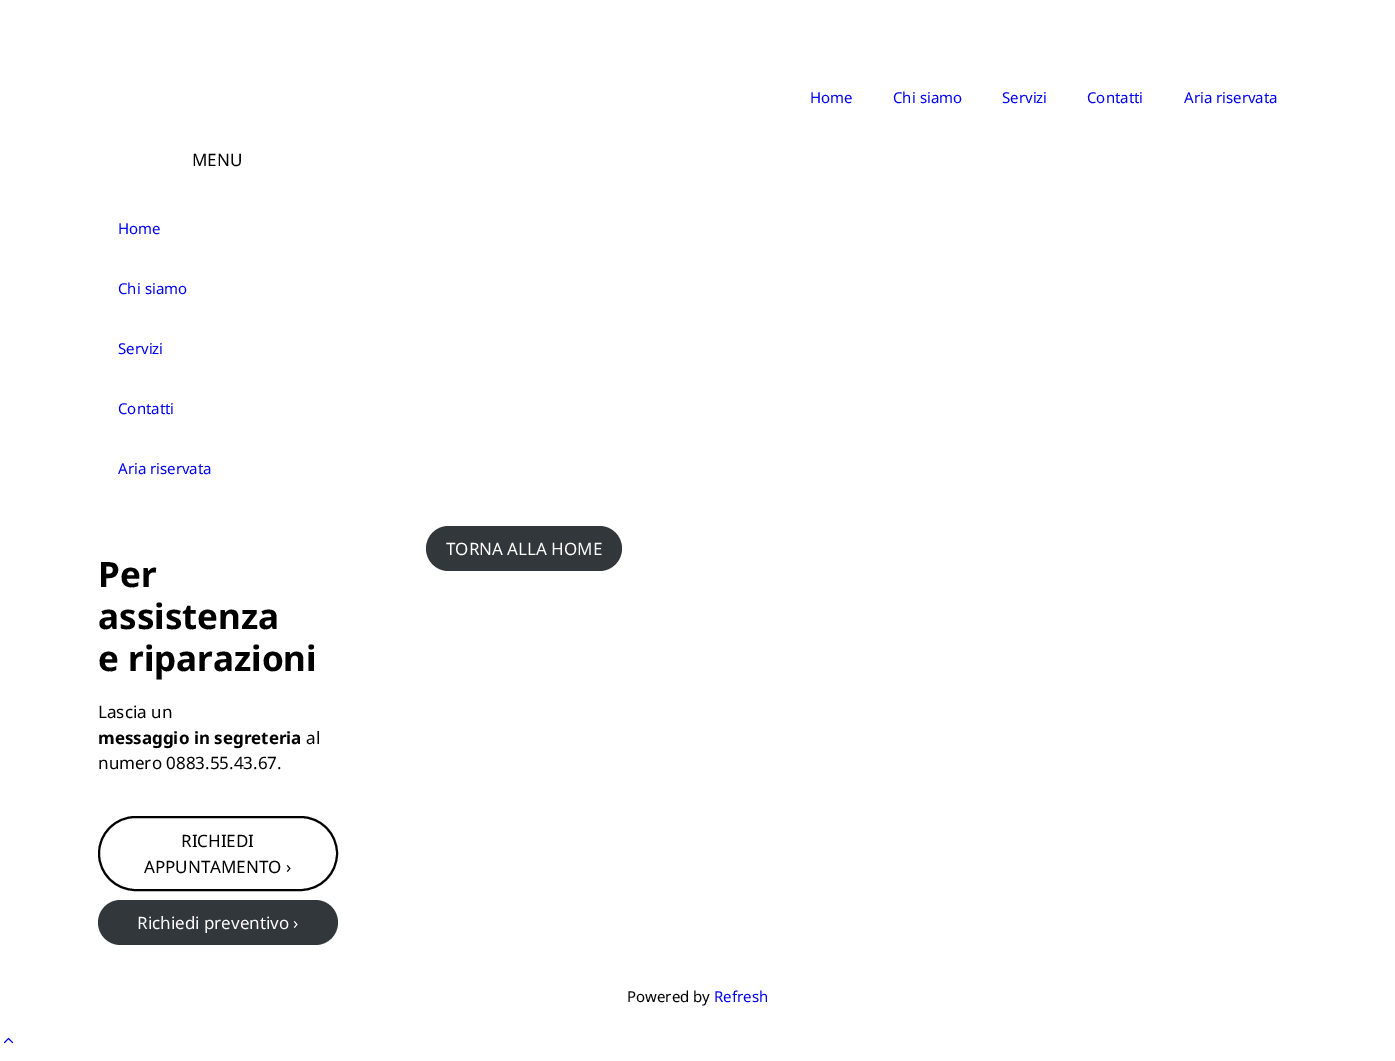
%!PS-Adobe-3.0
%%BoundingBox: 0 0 1395 1061
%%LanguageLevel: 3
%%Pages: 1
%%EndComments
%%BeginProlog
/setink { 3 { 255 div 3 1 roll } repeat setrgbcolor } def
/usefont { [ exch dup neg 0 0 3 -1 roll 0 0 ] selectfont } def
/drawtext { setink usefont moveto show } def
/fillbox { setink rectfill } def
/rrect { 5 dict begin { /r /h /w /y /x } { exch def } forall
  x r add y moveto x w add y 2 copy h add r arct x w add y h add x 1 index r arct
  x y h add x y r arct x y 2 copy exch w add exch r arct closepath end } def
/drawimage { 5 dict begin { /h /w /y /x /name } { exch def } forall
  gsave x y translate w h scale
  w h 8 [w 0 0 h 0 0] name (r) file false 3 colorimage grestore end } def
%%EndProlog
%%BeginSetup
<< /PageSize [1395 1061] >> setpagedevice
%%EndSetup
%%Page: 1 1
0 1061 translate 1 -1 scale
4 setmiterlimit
0 0 1395 1061 255 255 255 fillbox
(Home) 810 103 /NotoSans-Regular 15 0 0 238 drawtext
(Chi siamo) 893 103 /NotoSans-Regular 15 0 0 238 drawtext
(Servizi) 1002 103 /NotoSans-Regular 15 0 0 238 drawtext
(Contatti) 1087 103 /NotoSans-Regular 15 0 0 238 drawtext
(Aria riservata) 1184 103 /NotoSans-Regular 15 0 0 238 drawtext
(MENU) 192 166 /NotoSans-Regular 17 0 0 0 drawtext
(Home) 118 234 /NotoSans-Regular 15 0 0 238 drawtext
(Chi siamo) 118 294 /NotoSans-Regular 15 0 0 238 drawtext
(Servizi) 118 354 /NotoSans-Regular 15 0 0 238 drawtext
(Contatti) 118 414 /NotoSans-Regular 15 0 0 238 drawtext
(Aria riservata) 118 474 /NotoSans-Regular 15 0 0 238 drawtext
(Per) 98 587 /NotoSans-Bold 35 0 0 0 drawtext
(assistenza) 98 629 /NotoSans-Bold 35 0 0 0 drawtext
(e riparazioni) 98 671 /NotoSans-Bold 35 0 0 0 drawtext
(Lascia un) 98 718 /NotoSans-Regular 17 0 0 0 drawtext
(messaggio in segreteria) 98 744 /NotoSans-Bold 17 0 0 0 drawtext
(al) 306 744 /NotoSans-Regular 17 0 0 0 drawtext
(numero 0883.55.43.67.) 98 769 /NotoSans-Regular 17 0 0 0 drawtext
2 setlinewidth
99 817 238 73 36.5 rrect stroke
(RICHIEDI) 181 847 /NotoSans-Regular 17 0 0 0 drawtext
(APPUNTAMENTO ›) 144 873 /NotoSans-Regular 17 0 0 0 drawtext
50 55 60 setink
98 900 240 45 22.5 rrect fill
(Richiedi preventivo ›) 137 929 /NotoSans-Regular 17 255 255 255 drawtext
50 55 60 setink
426 526 196 45 22.5 rrect fill
(TORNA ALLA HOME) 446 555 /NotoSans-Regular 17 255 255 255 drawtext
(Powered by) 627 1002 /NotoSans-Regular 15 0 0 0 drawtext
(Refresh) 714 1002 /NotoSans-Regular 15 0 0 238 drawtext
(assets/img1.rgb) 3 1037 11 7 drawimage
showpage
%%EOF
